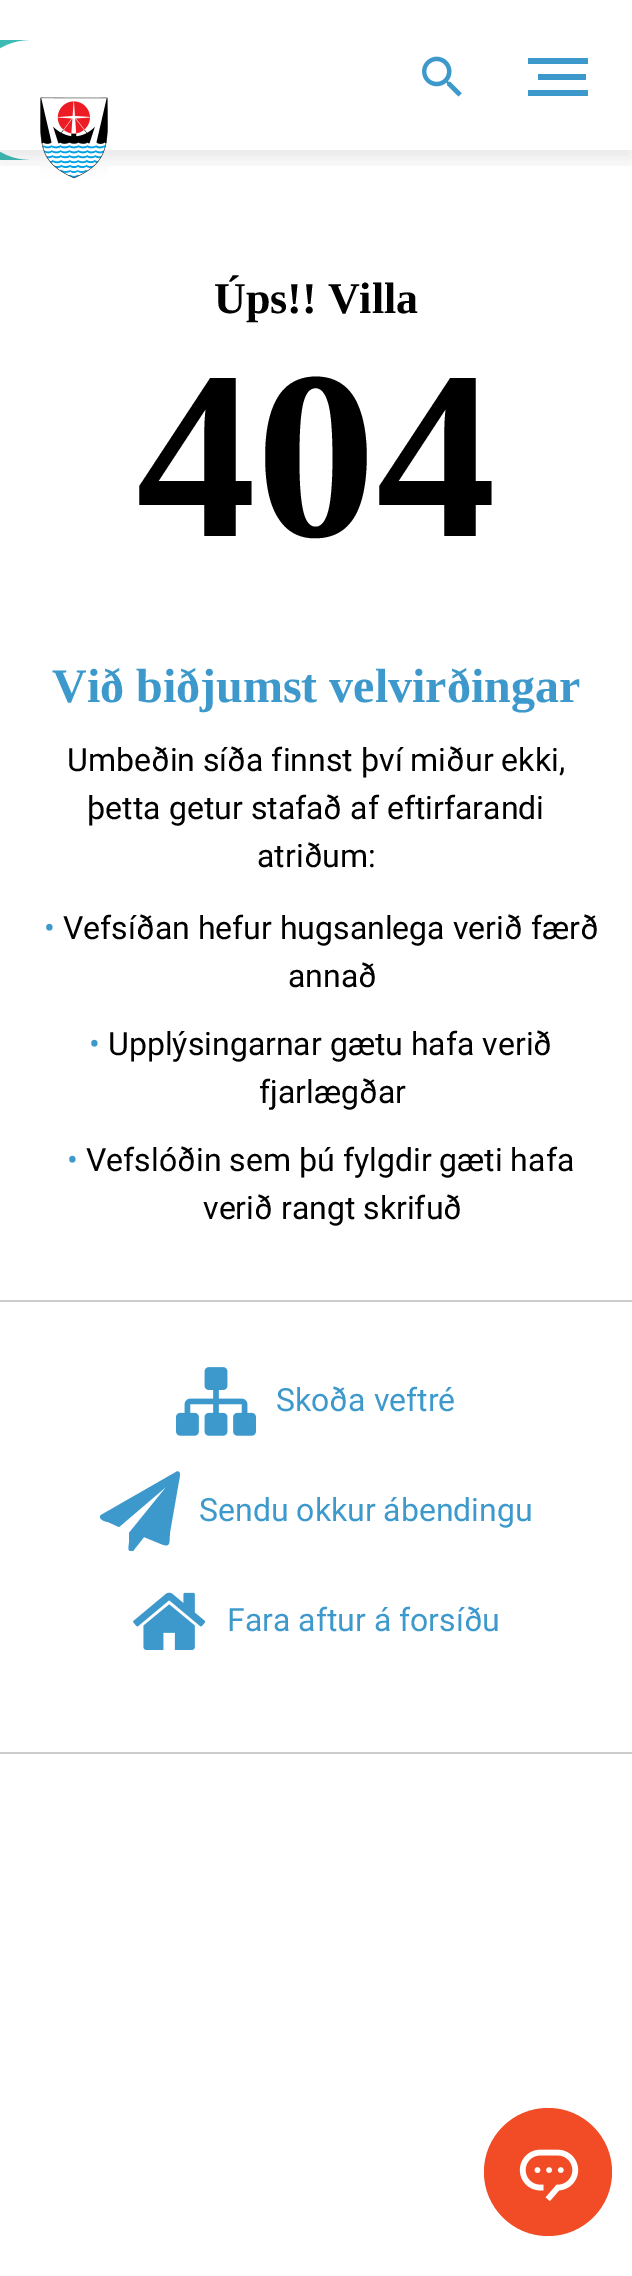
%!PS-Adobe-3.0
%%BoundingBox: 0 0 632 2276
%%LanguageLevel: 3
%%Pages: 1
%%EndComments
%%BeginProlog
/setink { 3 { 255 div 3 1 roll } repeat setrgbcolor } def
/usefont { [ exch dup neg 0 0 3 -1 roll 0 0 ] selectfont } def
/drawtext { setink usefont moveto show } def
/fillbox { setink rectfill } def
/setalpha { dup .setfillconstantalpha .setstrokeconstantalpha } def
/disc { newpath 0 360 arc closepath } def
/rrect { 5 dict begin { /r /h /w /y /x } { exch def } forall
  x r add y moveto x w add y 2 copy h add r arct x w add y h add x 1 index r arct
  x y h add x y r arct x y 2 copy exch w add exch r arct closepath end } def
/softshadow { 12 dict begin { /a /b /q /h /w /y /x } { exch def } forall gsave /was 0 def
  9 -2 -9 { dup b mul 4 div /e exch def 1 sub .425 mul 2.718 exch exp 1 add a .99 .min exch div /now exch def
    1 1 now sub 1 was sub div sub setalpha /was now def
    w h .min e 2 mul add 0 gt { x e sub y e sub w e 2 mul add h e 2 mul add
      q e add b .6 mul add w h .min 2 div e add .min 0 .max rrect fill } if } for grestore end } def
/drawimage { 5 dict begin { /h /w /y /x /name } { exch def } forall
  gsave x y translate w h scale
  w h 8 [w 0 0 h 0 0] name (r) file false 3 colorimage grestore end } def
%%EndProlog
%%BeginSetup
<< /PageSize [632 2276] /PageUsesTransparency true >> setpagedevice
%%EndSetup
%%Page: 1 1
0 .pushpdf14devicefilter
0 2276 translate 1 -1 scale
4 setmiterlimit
0 0 632 2276 255 255 255 fillbox
62 186 180 setink
30 40 moveto 0 40 lineto 0 160 lineto 30 160 lineto -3 160 -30 133 -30 100 curveto -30 67 -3 40 30 40 curveto closepath fill
gsave
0 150 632 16 rectclip
0 0 0 setink
0 8 632 150 0 10 0.1 softshadow
grestore
(assets/img1.rgb) 40 97 68 82 drawimage
(assets/img2.rgb) 422 56 40 41 drawimage
528 58 60 6 61 153 204 fillbox
538 74 48 6 61 153 204 fillbox
528 90 60 6 61 153 204 fillbox
(Úps!! Villa) 214 313 /Tinos-Bold 44 0 0 0 drawtext
(404) 136 536 /Tinos-Bold 240 0 0 0 drawtext
(Við biðjumst velvirðingar) 52 702 /Tinos-Bold 48 61 153 204 drawtext
(Umbeðin síða finnst því miður ekki,) 67 771 /Roboto-Regular 32 0 0 0 drawtext
(þetta getur stafað af eftirfarandi) 87 819 /Roboto-Regular 32 0 0 0 drawtext
(atriðum:) 257 867 /Roboto-Regular 32 0 0 0 drawtext
(•) 44 939 /Roboto-Regular 32 61 153 204 drawtext
(Vefsíðan hefur hugsanlega verið færð) 63 939 /Roboto-Regular 32 0 0 0 drawtext
(annað) 288 987 /Roboto-Regular 32 0 0 0 drawtext
(•) 89 1055 /Roboto-Regular 32 61 153 204 drawtext
(Upplýsingarnar gætu hafa verið) 108 1055 /Roboto-Regular 32 0 0 0 drawtext
(fjarlægðar) 259 1103 /Roboto-Regular 32 0 0 0 drawtext
(•) 67 1171 /Roboto-Regular 32 61 153 204 drawtext
(Vefslóðin sem þú fylgdir gæti hafa) 86 1171 /Roboto-Regular 32 0 0 0 drawtext
(verið rangt skrifuð) 203 1219 /Roboto-Regular 32 0 0 0 drawtext
0 1300 632 2 204 204 204 fillbox
0 1752 632 2 204 204 204 fillbox
(assets/img3.rgb) 176 1367 80 69 drawimage
(Skoða veftré) 276 1411 /Roboto-Regular 32 61 153 204 drawtext
179 1472 moveto 180 1473 180 1474 180 1475 curveto 170 1532 lineto 169 1543 171 1548 161 1544 curveto 144 1537 lineto 133 1551 lineto 131 1551 lineto 127 1551 129 1546 129 1543 curveto 129 1533 lineto 167 1486 lineto 119 1527 lineto 108 1522 lineto 106 1522 97 1519 101 1515 curveto 176 1472 lineto 177 1471 178 1471 179 1472 curveto closepath fill
(Sendu okkur ábendingu) 199 1521 /Roboto-Regular 32 61 153 204 drawtext
(assets/img4.rgb) 133 1592 73 58 drawimage
(Fara aftur á forsíðu) 227 1631 /Roboto-Regular 32 61 153 204 drawtext
241 76 37 setink
548 2172 64 disc fill
(assets/img5.rgb) 519 2149 60 53 drawimage
.poppdf14devicefilter showpage
%%EOF
